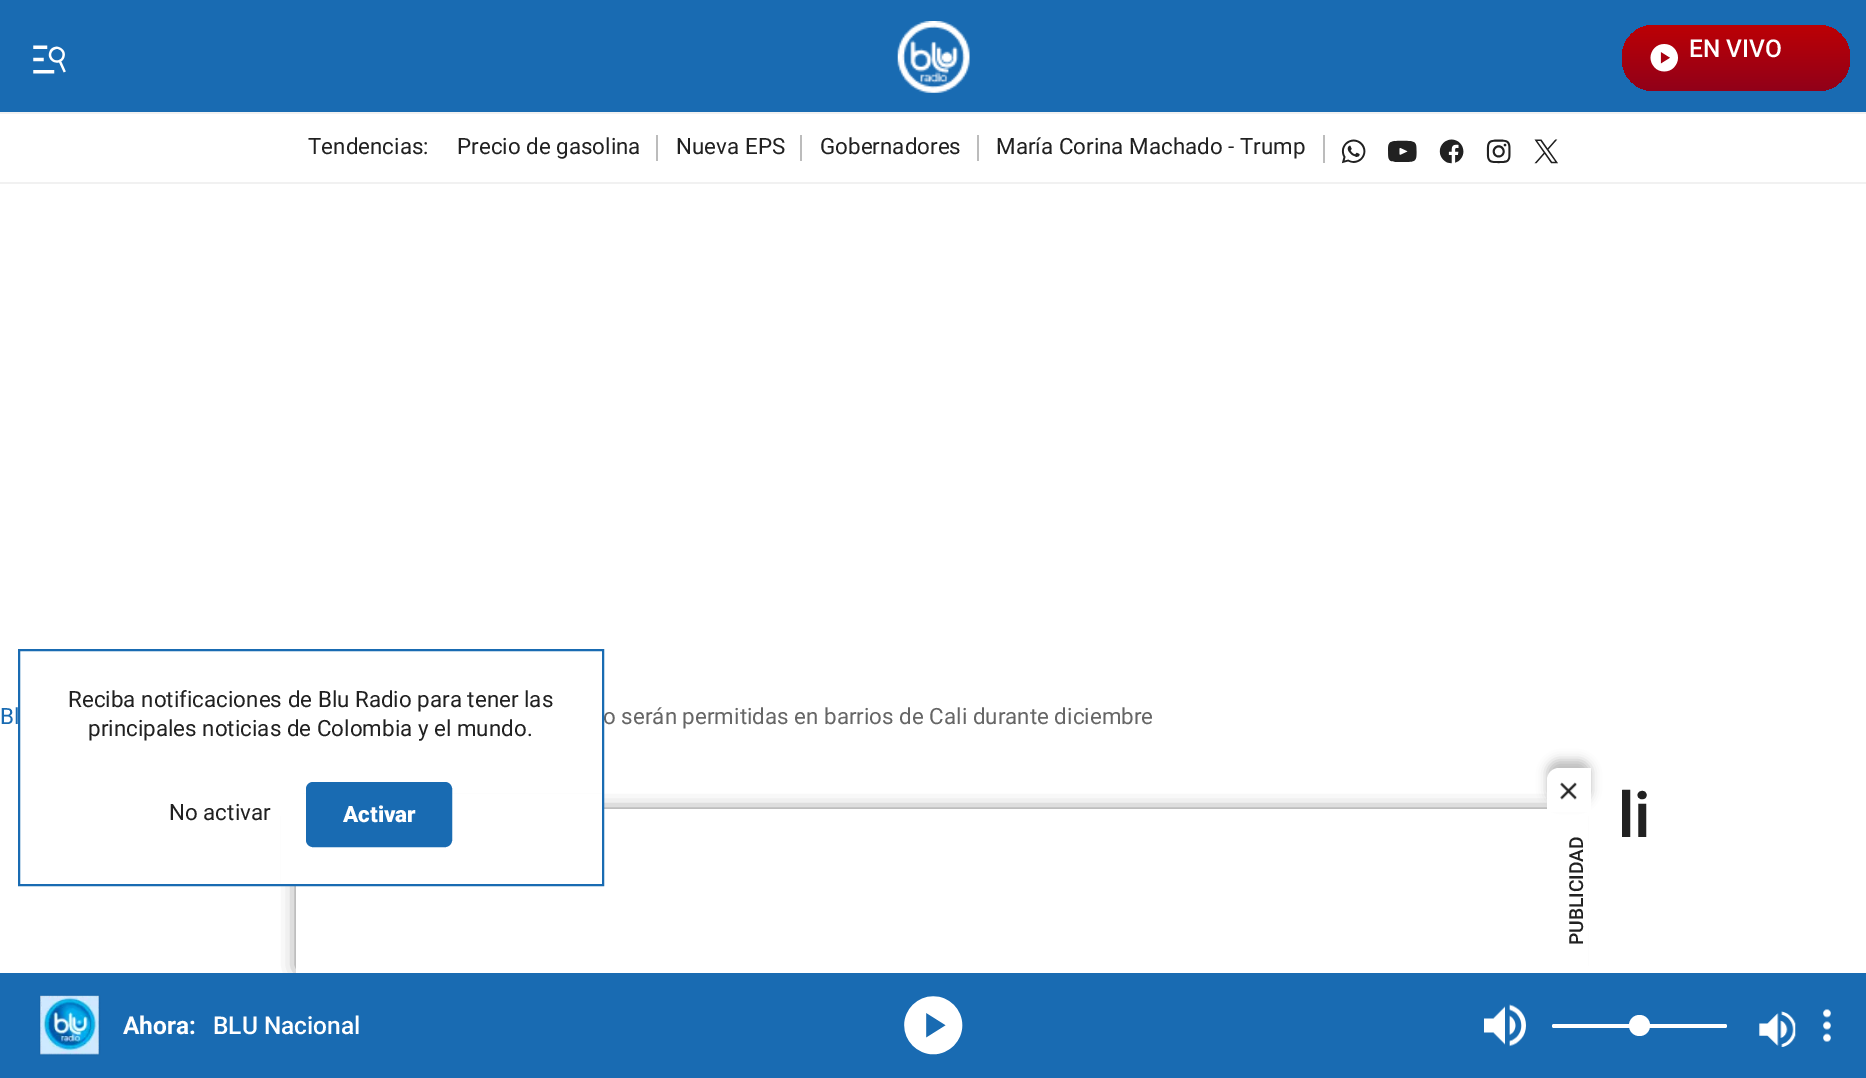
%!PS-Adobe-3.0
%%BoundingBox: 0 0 1866 1078
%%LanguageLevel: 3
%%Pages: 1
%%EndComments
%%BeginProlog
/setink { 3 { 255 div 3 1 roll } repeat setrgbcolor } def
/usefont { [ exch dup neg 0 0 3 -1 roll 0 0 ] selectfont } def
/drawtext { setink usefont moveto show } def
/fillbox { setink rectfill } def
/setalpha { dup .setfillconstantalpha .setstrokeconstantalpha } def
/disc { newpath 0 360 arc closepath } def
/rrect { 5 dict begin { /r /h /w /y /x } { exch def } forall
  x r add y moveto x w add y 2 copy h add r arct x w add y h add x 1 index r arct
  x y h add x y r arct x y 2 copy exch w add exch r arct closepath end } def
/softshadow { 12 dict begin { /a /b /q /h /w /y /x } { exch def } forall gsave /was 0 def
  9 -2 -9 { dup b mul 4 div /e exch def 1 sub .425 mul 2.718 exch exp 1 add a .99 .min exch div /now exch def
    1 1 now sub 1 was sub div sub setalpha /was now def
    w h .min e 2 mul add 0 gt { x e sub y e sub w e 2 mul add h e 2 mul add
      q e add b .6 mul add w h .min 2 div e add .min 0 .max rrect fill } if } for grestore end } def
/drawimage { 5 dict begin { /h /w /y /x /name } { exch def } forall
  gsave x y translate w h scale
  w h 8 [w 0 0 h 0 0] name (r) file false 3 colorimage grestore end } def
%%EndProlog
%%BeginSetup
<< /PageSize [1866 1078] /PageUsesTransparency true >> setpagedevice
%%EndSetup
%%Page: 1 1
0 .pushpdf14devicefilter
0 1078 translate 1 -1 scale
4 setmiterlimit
0 0 1866 1078 255 255 255 fillbox
0 0 1866 112 25 107 178 fillbox
0 112 1866 2 241 241 241 fillbox
(assets/img1.rgb) 33 45 33 29 drawimage
(assets/img2.rgb) 897 21 73 72 drawimage
gsave 1622 25 228 66 32 rrect clip newpath
<< /ShadingType 2 /ColorSpace /DeviceRGB /Coords [1736 24 1736 91] /Extend [true true] /Function << /FunctionType 2 /Domain [0 1] /C0 [0.741 0 0.02] /C1 [0.569 0 0.098] /N 1 >> >> shfill grestore
(assets/img3.rgb) 1650 44 28 28 drawimage
(EN VIVO) 1689 57 /Roboto-Medium 24.5 255 255 255 drawtext
0 182 1866 2 241 241 241 fillbox
(Tendencias:) 308 154 /Roboto-Regular 22.4 33 33 33 drawtext
(Precio de gasolina) 457 154 /Roboto-Regular 22.4 33 33 33 drawtext
656 135 2 26 188 188 188 fillbox
(Nueva EPS) 676 154 /Roboto-Regular 22.4 33 33 33 drawtext
800 135 2 26 188 188 188 fillbox
(Gobernadores) 820 154 /Roboto-Regular 22.4 33 33 33 drawtext
977 135 2 26 188 188 188 fillbox
(María Corina Machado - Trump) 996 154 /Roboto-Regular 22.4 33 33 33 drawtext
1323 135 2 28 188 188 188 fillbox
(assets/img4.rgb) 1341 139 25 25 drawimage
(assets/img5.rgb) 1388 140 29 22 drawimage
(assets/img6.rgb) 1439 139 25 25 drawimage
(assets/img7.rgb) 1486 139 25 25 drawimage
(assets/img8.rgb) 1534 139 24 25 drawimage
33 33 33 setink
301 814 1267 154 0 9 1 softshadow
296 809 1272 164 255 255 255 fillbox
281 794 321 90 255 255 255 fillbox
(o serán permitidas en barrios de Cali durante diciembre) 603 724 /Roboto-Regular 22.4 102 102 102 drawtext
25 107 178 setink
2 setlinewidth
19 650 584 235 rectstroke
(Reciba notificaciones de Blu Radio para tener las) 68 707 /Roboto-Regular 22.4 33 33 33 drawtext
(principales noticias de Colombia y el mundo.) 88 736 /Roboto-Regular 22.4 33 33 33 drawtext
(No activar) 169 820 /Roboto-Regular 22.4 33 33 33 drawtext
25 107 178 setink
307 783 144 63 6 rrect gsave fill grestore
stroke
(Activar) 343 822 /Roboto-Black 22.4 255 255 255 drawtext
(Bl) 0 724 /Roboto-Regular 22.4 25 107 178 drawtext
(li) 1618 837 /Roboto-SemiBold 63 33 33 33 drawtext
1568 812 20 161 255 255 255 fillbox
33 33 33 setink
1547 760 44 43 12 5 0.3 softshadow
255 255 255 setink
1559 768 moveto 1591 768 lineto 1591 812 lineto 1547 812 lineto 1547 780 lineto 1547 773.5 1552.5 768 1559 768 curveto closepath fill
(assets/img9.rgb) 1560 782 17 18 drawimage
/Roboto-Medium 19.25 usefont
33 33 33 setink
gsave 1583 945 translate -90 rotate 0 0 moveto (PUBLICIDAD) show grestore
0 973 1866 105 25 107 178 fillbox
(assets/img10.rgb) 39 994 62 62 drawimage
(Ahora:) 123 1034 /Roboto-Bold 24.5 255 255 255 drawtext
(BLU Nacional) 213 1034 /Roboto-Medium 24.5 255 255 255 drawtext
(assets/img11.rgb) 904 996 59 59 drawimage
(assets/img12.rgb) 1484 1004 42 43 drawimage
1552 1024 175 4 2 rrect fill
1639.5 1025.5 10.5 disc fill
(assets/img13.rgb) 1759 1011 37 36 drawimage
(assets/img14.rgb) 1823 1009 8 33 drawimage
.poppdf14devicefilter showpage
%%EOF
